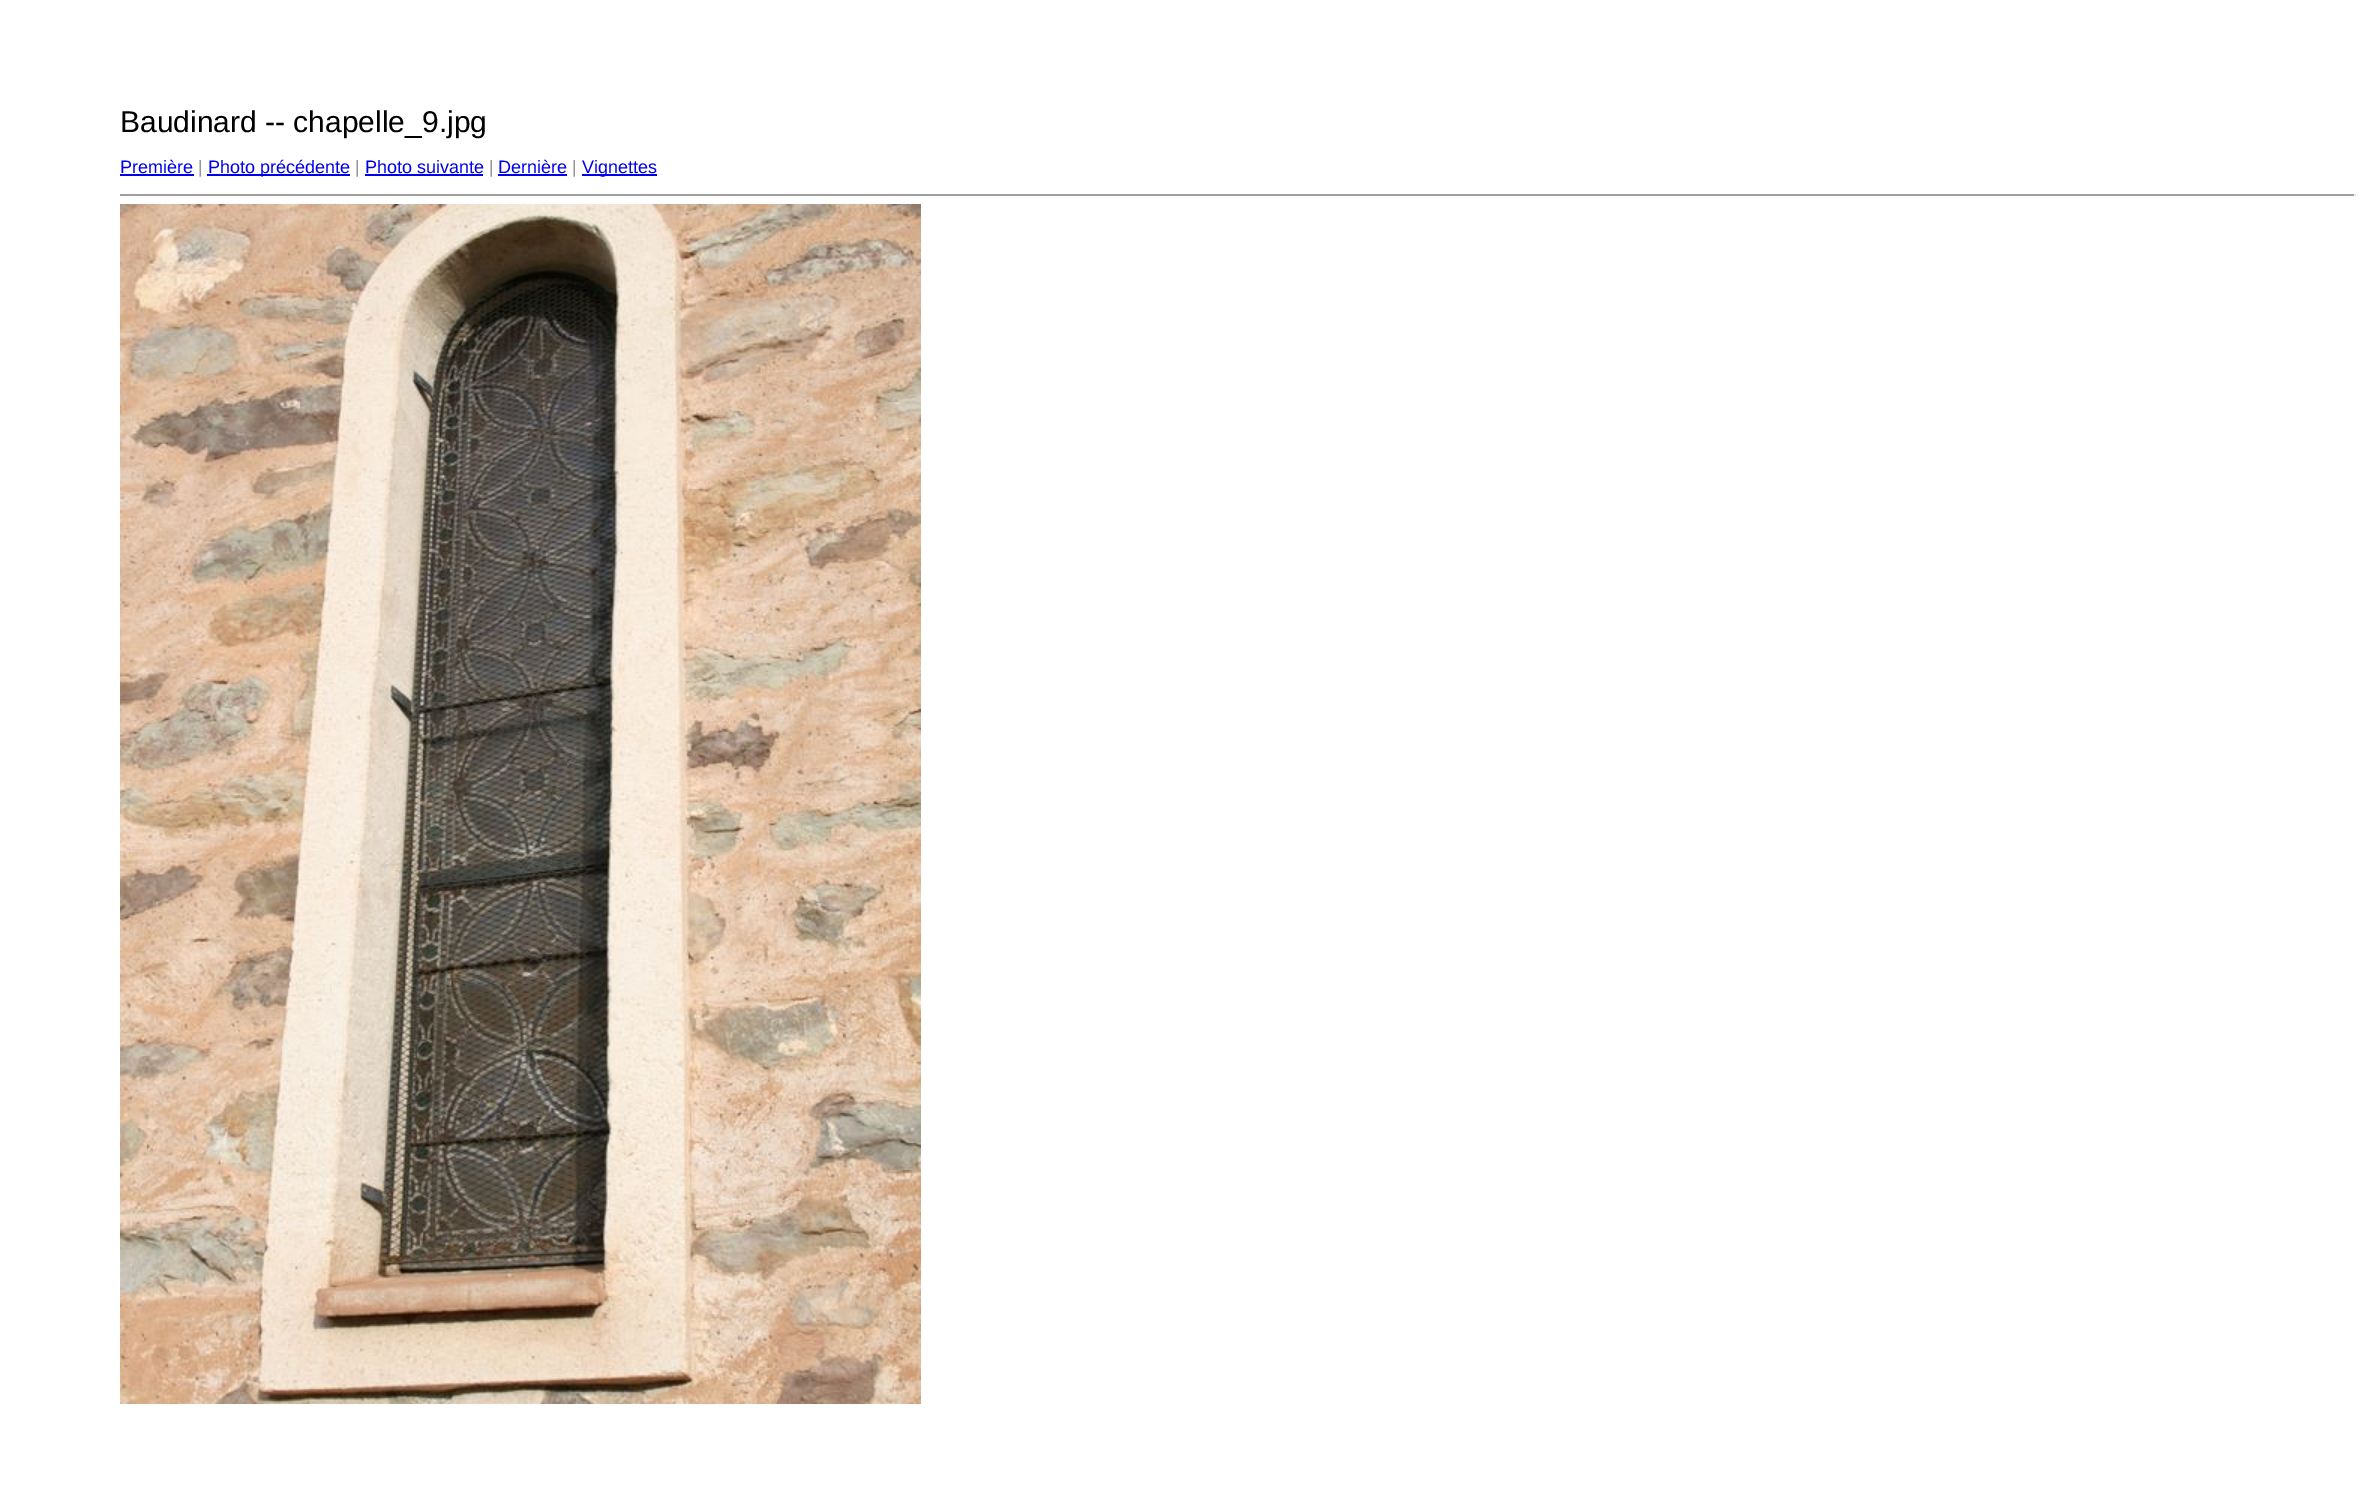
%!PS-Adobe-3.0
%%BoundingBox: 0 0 2366 1485
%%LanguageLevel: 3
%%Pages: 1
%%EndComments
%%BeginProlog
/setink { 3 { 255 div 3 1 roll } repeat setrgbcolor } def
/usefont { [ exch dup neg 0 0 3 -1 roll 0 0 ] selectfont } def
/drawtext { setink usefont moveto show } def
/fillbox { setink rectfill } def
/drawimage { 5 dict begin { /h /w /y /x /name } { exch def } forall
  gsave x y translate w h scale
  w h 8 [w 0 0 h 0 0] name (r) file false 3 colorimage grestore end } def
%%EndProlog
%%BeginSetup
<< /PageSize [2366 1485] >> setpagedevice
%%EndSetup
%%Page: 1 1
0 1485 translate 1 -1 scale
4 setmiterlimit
0 0 2366 1485 255 255 255 fillbox
(Baudinard -- chapelle_9.jpg) 120 132 /LiberationSans-Regular 30 0 0 0 drawtext
(Première) 120 173 /LiberationSans-Regular 18 0 0 238 drawtext
120 174 74 2 0 0 238 fillbox
(|) 198 173 /LiberationSans-Regular 18 151 151 151 drawtext
207 174 143 2 0 0 238 fillbox
(Photo précédente) 208 173 /LiberationSans-Regular 18 0 0 238 drawtext
(|) 355 173 /LiberationSans-Regular 18 151 151 151 drawtext
(Photo suivante) 365 173 /LiberationSans-Regular 18 0 0 238 drawtext
365 174 118 2 0 0 238 fillbox
(|) 489 173 /LiberationSans-Regular 18 151 151 151 drawtext
(Dernière) 498 173 /LiberationSans-Regular 18 0 0 238 drawtext
498 174 69 2 0 0 238 fillbox
(|) 572 173 /LiberationSans-Regular 18 151 151 151 drawtext
582 174 75 2 0 0 238 fillbox
(Vignettes) 582 173 /LiberationSans-Regular 18 0 0 238 drawtext
120 194 2235 2 159 159 159 fillbox
2354 194 2 2 238 238 238 fillbox
(assets/img1.rgb) 120 204 801 1200 drawimage
showpage
%%EOF
